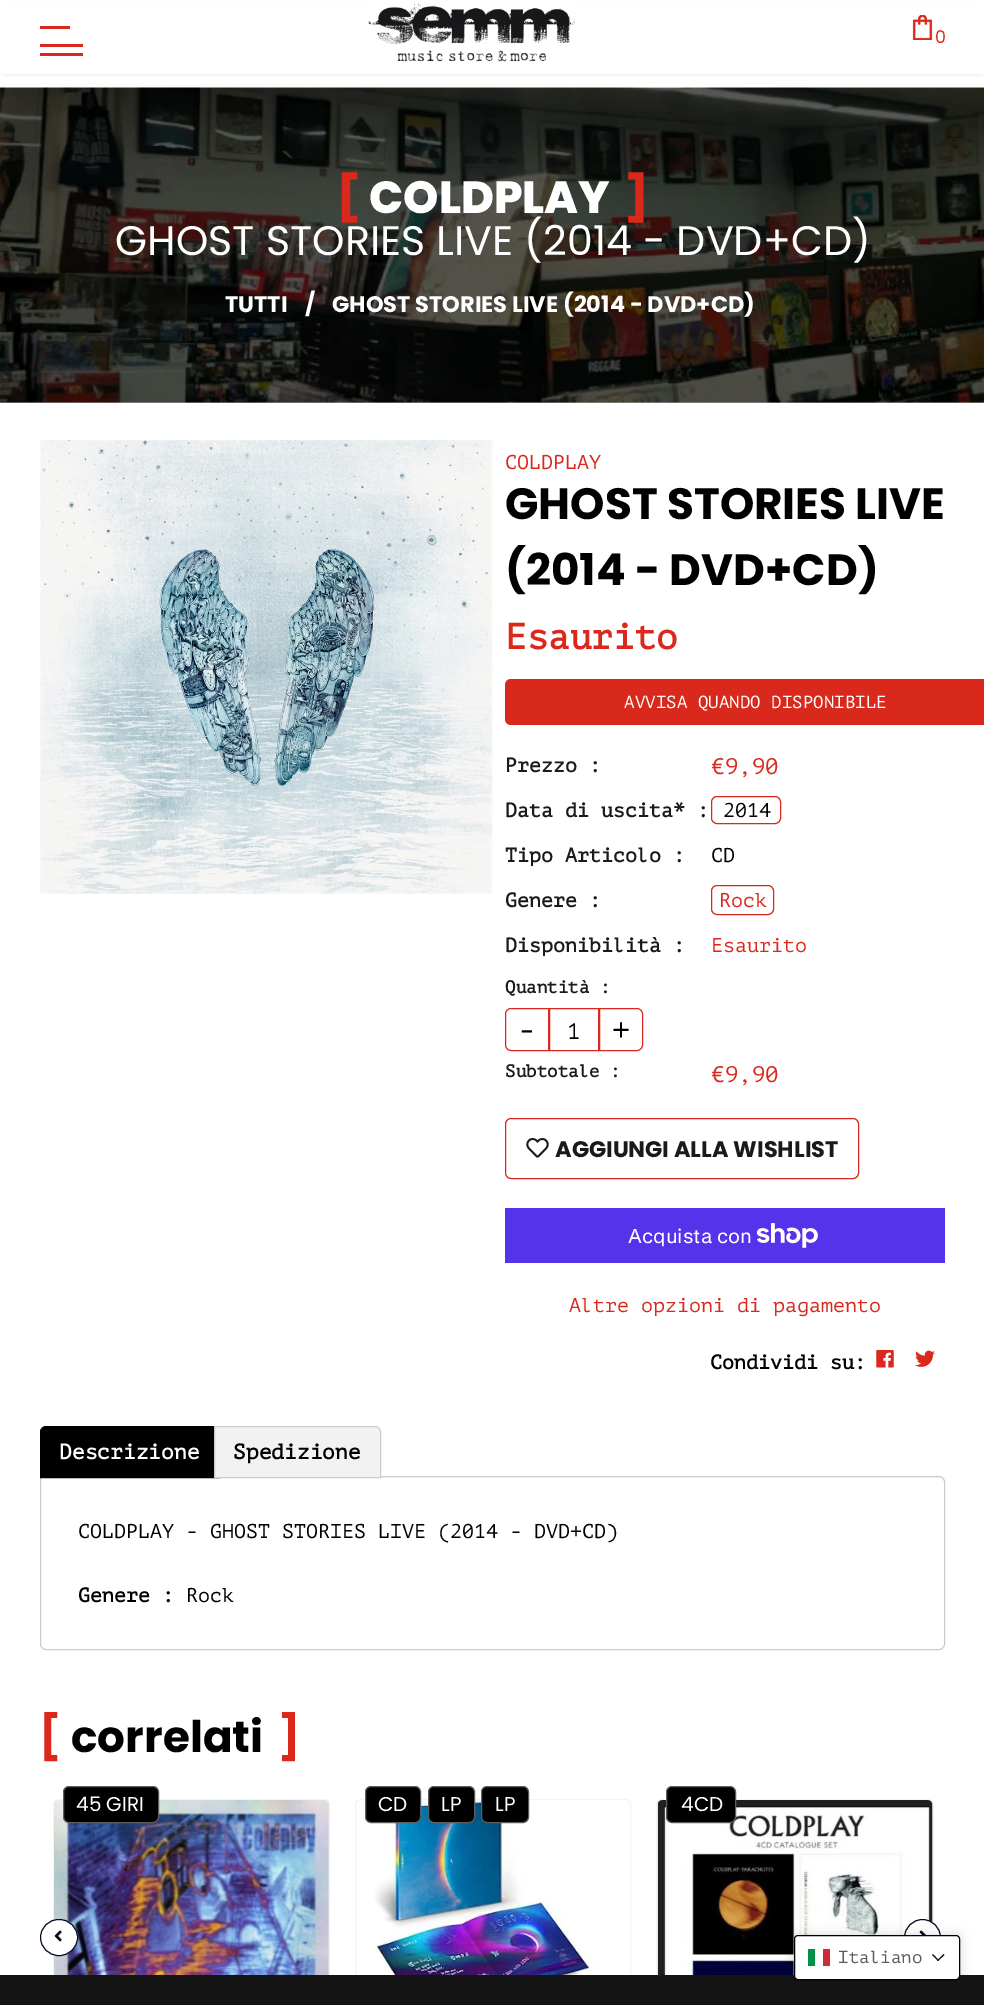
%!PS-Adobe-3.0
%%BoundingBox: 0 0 984 2005
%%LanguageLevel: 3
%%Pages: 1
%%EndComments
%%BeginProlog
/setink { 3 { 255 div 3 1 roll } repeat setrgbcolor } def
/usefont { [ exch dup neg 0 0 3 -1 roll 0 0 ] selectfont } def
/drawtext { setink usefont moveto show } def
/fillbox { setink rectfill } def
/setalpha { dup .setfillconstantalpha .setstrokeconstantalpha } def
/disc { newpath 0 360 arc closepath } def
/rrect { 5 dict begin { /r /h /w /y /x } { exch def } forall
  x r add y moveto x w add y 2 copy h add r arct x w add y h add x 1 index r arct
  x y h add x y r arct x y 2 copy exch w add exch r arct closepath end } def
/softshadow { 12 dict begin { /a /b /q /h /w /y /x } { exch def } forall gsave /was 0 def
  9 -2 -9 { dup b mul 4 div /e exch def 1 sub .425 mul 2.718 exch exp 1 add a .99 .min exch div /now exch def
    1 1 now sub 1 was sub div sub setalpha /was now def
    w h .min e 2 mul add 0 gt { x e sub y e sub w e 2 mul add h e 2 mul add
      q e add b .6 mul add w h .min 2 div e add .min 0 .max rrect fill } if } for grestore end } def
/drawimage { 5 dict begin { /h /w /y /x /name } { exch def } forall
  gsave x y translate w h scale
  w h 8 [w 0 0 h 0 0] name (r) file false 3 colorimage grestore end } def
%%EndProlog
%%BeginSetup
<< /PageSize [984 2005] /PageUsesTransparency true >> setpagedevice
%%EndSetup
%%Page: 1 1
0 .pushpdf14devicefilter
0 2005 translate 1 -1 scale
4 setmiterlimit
0 0 984 2005 255 255 255 fillbox
0 402 984 1 173 173 173 fillbox
0 0 0 setink
4 8 977 66 0 2 0.12 softshadow
1 5 983 69 255 255 255 fillbox
40 26 30 3 218 41 28 fillbox
40 44 43 3 218 41 28 fillbox
40 53 43 3 218 41 28 fillbox
(assets/img1.rgb) 368 1 207 61 drawimage
(assets/img2.rgb) 912 15 21 25 drawimage
(0) 935 43 /Poppins-Regular 17.5 218 41 28 drawtext
(assets/img3.rgb) 0 87 984 316 drawimage
([) 337 213 /Poppins-ExtraBold 45 218 41 28 drawtext
(COLDPLAY) 369 213 /Poppins-ExtraBold 45 255 255 255 drawtext
(]) 625 213 /Poppins-ExtraBold 45 218 41 28 drawtext
(GHOST STORIES LIVE \(2014 - DVD+CD\)) 115 255 /Poppins-Regular 41.25 255 255 255 drawtext
(TUTTI) 225 312 /Poppins-Bold 22.5 255 255 255 drawtext
(/) 305 312 /Poppins-Bold 22.5 255 255 255 drawtext
(GHOST STORIES LIVE \(2014 - DVD+CD\)) 332 312 /Poppins-Bold 22.5 255 255 255 drawtext
(assets/img4.rgb) 40 440 453 454 drawimage
(COLDPLAY) 505 469 /PTMono-Regular 20 218 41 28 drawtext
(GHOST STORIES LIVE) 505 519 /Poppins-Bold 43.75 0 0 0 drawtext
(\(2014 - DVD+CD\)) 505 585 /Poppins-Bold 43.75 0 0 0 drawtext
(Esaurito) 505 649 /PTMono-Bold 36 218 41 28 drawtext
217 41 28 setink
511 679 moveto 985 679 lineto 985 725 lineto 511 725 lineto 507.5 725 505 722.5 505 719 curveto 505 685 lineto 505 681.5 507.5 679 511 679 curveto closepath fill
(AVVISA QUANDO DISPONIBILE) 624 708 /PTMono-Regular 17.5 255 255 255 drawtext
(Prezzo :) 505 772 /PTMono-Bold 20 26 26 26 drawtext
(€9,90) 711 774 /PTMono-Regular 22.5 218 41 28 drawtext
(Data di uscita* :) 505 817 /PTMono-Bold 20 26 26 26 drawtext
218 41 28 setink
711.5 796.5 69 27 5.5 rrect stroke
(2014) 723 817 /PTMono-Regular 20 0 0 0 drawtext
(Tipo Articolo :) 505 862 /PTMono-Bold 20 26 26 26 drawtext
(CD) 711 862 /PTMono-Regular 20 0 0 0 drawtext
(Genere :) 505 907 /PTMono-Bold 20 26 26 26 drawtext
217 41 28 setink
711.5 885.5 62 29 5.5 rrect stroke
(Rock) 719 907 /PTMono-Regular 20 218 41 28 drawtext
(Disponibilità :) 505 952 /PTMono-Bold 20 26 26 26 drawtext
(Esaurito) 711 952 /PTMono-Regular 20 218 41 28 drawtext
(Quantità :) 505 993 /PTMono-Bold 17.5 26 26 26 drawtext
218 41 28 setink
511 1008.5 moveto 548.5 1008.5 lineto 548.5 1050.5 lineto 511 1050.5 lineto 508 1050.5 505.5 1048 505.5 1045 curveto 505.5 1014 lineto 505.5 1011 508 1008.5 511 1008.5 curveto closepath stroke
(-) 518 1040 /PTMono-Regular 30 0 0 0 drawtext
218 41 28 setink
549.5 1008.5 49 42 rectstroke
(1) 567 1039 /PTMono-Regular 22.5 0 0 0 drawtext
218 41 28 setink
599.5 1008.5 moveto 637 1008.5 lineto 640 1008.5 642.5 1011 642.5 1014 curveto 642.5 1045 lineto 642.5 1048 640 1050.5 637 1050.5 curveto 599.5 1050.5 lineto closepath stroke
(+) 612 1040 /PTMono-Regular 30 0 0 0 drawtext
(Subtotale :) 505 1077 /PTMono-Bold 17.5 26 26 26 drawtext
(€9,90) 711 1082 /PTMono-Regular 22.5 218 41 28 drawtext
505.5 1118.5 353 60 5.5 rrect stroke
(assets/img5.rgb) 526 1138 23 20 drawimage
(AGGIUNGI ALLA WISHLIST) 555 1157 /Poppins-Bold 22.5 26 26 26 drawtext
505 1208 440 55 84 51 235 fillbox
(Acquista con) 628 1243 /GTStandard-Regular 20 255 255 255 drawtext
(assets/img6.rgb) 756 1223 62 25 drawimage
(Altre opzioni di pagamento) 569 1312 /PTMono-Regular 20 218 41 28 drawtext
(Condividi su:) 710 1369 /PTMono-Bold 20 0 0 0 drawtext
(assets/img7.rgb) 876 1350 18 18 drawimage
(assets/img8.rgb) 915 1350 20 17 drawimage
204 204 204 setink
40.5 1476.5 moveto 939 1476.5 lineto 942 1476.5 944.5 1479 944.5 1482 curveto 944.5 1644 lineto 944.5 1647 942 1649.5 939 1649.5 curveto 46 1649.5 lineto 43 1649.5 40.5 1647 40.5 1644 curveto closepath stroke
0 0 0 setink
46 1426.5 moveto 219.5 1426.5 lineto 219.5 1477.5 lineto 40.5 1477.5 lineto 40.5 1432 lineto 40.5 1429 43 1426.5 46 1426.5 curveto closepath gsave fill grestore
stroke
(Descrizione) 59 1459 /PTMono-Bold 21.25 255 255 255 drawtext
242 242 242 setink
214.5 1426.5 moveto 375 1426.5 lineto 378 1426.5 380.5 1429 380.5 1432 curveto 380.5 1477.5 lineto 214.5 1477.5 lineto closepath gsave fill grestore
204 204 204 setink
stroke
(Spedizione) 233 1459 /PTMono-Bold 21.25 0 0 0 drawtext
(COLDPLAY - GHOST STORIES LIVE \(2014 - DVD+CD\)) 78 1538 /PTMono-Regular 20 0 0 0 drawtext
(Genere :) 78 1602 /PTMono-Bold 20 0 0 0 drawtext
(Rock) 186 1602 /PTMono-Regular 20 0 0 0 drawtext
([) 39 1752 /Poppins-Bold 43.75 218 41 28 drawtext
(correlati) 71 1752 /Poppins-Bold 43.75 0 0 0 drawtext
(]) 278 1752 /Poppins-Bold 43.75 218 41 28 drawtext
232 232 232 setink
53.5 1799.5 276 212 5.5 rrect gsave fill grestore
244 244 244 setink
stroke
(assets/img9.rgb) 54 1800 275 175 drawimage
0 0 0 setink
63.5 1786.5 95 36 5.5 rrect gsave fill grestore
94 94 94 setink
stroke
(45 GIRI) 76 1811 /Poppins-Regular 20 255 255 255 drawtext
232 232 232 setink
355.5 1799.5 275 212 5.5 rrect gsave fill grestore
244 244 244 setink
stroke
(assets/img10.rgb) 356 1800 274 175 drawimage
0 0 0 setink
365.5 1786.5 55 36 5.5 rrect gsave fill grestore
94 94 94 setink
stroke
(CD) 378 1811 /Poppins-Regular 20 255 255 255 drawtext
0 0 0 setink
428.5 1786.5 46 36 5.5 rrect gsave fill grestore
94 94 94 setink
stroke
(LP) 441 1811 /Poppins-Regular 20 255 255 255 drawtext
0 0 0 setink
481.5 1786.5 47 36 5.5 rrect gsave fill grestore
94 94 94 setink
stroke
(LP) 495 1811 /Poppins-Regular 20 255 255 255 drawtext
232 232 232 setink
656.5 1799.5 277 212 5.5 rrect gsave fill grestore
244 244 244 setink
stroke
(assets/img11.rgb) 658 1800 275 175 drawimage
0 0 0 setink
666.5 1786.5 69 36 5.5 rrect gsave fill grestore
94 94 94 setink
stroke
(4CD) 681 1811 /Poppins-Regular 20 255 255 255 drawtext
40.5 1919.5 37 36 18 rrect gsave fill grestore
3 13 29 setink
stroke
(assets/img12.rgb) 54 1930 8 12 drawimage
255 255 255 setink
922.5 1937.5 18 disc gsave fill grestore
3 13 29 setink
stroke
(assets/img13.rgb) 919 1930 7 5 drawimage
0 1975 984 30 20 20 20 fillbox
0 0 0 setink
794 1935 166 45 4 6 0.15 softshadow
255 255 255 setink
794.5 1935.5 165 44 3.5 rrect gsave fill grestore
0 0 0 setink
stroke
808 1949 7 17 0 146 70 fillbox
823 1949 7 17 206 43 55 fillbox
(Italiano) 838 1963 /PTMono-Regular 17.5 92 92 92 drawtext
26 26 26 setink
943.5 1954 moveto 944.5 1955 lineto 938 1961 lineto 937 1960.5 lineto closepath fill
933 1954 moveto 939 1960.5 lineto 938 1961 lineto 932 1955 lineto closepath fill
.poppdf14devicefilter showpage
%%EOF
